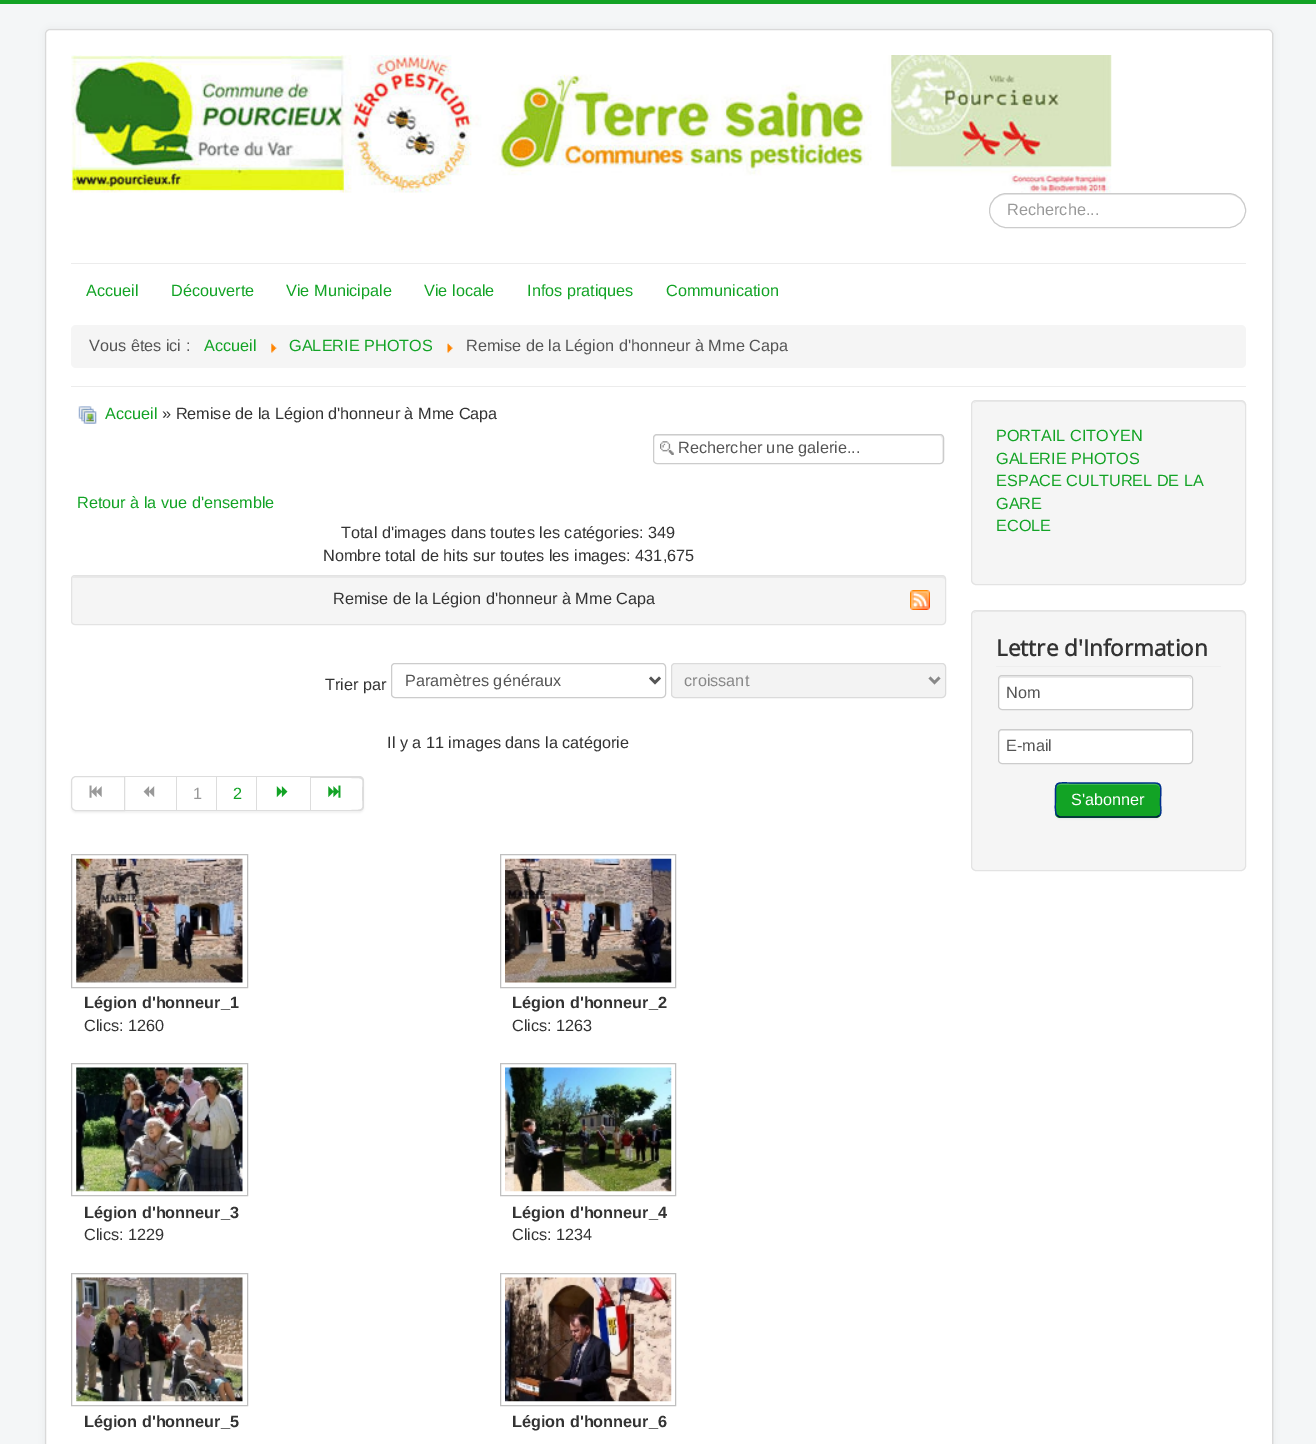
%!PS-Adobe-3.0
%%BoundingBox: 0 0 1316 1444
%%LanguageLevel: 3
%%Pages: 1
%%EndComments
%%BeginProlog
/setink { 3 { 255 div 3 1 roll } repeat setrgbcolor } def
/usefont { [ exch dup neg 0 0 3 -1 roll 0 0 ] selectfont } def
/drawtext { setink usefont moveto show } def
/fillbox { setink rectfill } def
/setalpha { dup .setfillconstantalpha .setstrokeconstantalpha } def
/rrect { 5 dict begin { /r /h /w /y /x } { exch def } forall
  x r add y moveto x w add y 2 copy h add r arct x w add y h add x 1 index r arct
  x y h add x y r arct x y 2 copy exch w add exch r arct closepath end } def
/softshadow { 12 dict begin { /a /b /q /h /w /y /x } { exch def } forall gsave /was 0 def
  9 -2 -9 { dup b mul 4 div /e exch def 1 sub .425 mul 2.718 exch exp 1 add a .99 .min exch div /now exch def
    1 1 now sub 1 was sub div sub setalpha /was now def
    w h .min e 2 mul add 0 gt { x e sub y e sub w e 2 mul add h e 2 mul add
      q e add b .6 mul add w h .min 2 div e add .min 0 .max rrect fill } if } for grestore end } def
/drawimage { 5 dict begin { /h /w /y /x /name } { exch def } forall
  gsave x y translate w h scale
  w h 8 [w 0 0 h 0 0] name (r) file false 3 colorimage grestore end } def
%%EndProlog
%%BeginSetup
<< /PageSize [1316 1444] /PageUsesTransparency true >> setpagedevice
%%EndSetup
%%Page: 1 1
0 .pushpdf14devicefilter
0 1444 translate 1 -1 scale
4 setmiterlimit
0 0 1316 1444 244 246 247 fillbox
0 0 1316 4 18 163 37 fillbox
0 0 0 setink
45 29 1228 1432 5 4 0.05 softshadow
255 255 255 setink
45 29 1228 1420 5 rrect fill
0.15 setalpha
0 0 0 setink
45.5 29.5 1227 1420 4.5 rrect stroke
1 setalpha
(assets/img1.rgb) 71 55 1041 138 drawimage
236 236 236 setink
1006 195 moveto 1229 195 lineto 1238 195 1245 202 1245 210 curveto 1245 202 1238 194 1229 194 curveto 1006 194 lineto 997 194 990 202 990 210 curveto 990 202 997 195 1006 195 curveto closepath fill
204 204 204 setink
989.5 193.5 256 34 17 rrect stroke
(Recherche...) 1007 215 /LiberationSans-Regular 16.25 153 153 153 drawtext
71 263 1175 1 236 236 236 fillbox
71 386 1175 1 236 236 236 fillbox
(Accueil) 86 296 /LiberationSans-Regular 16.25 18 163 37 drawtext
(Découverte) 171 296 /LiberationSans-Regular 16.25 18 163 37 drawtext
(Vie Municipale) 286 296 /LiberationSans-Regular 16.25 18 163 37 drawtext
(Vie locale) 424 296 /LiberationSans-Regular 16.25 18 163 37 drawtext
(Infos pratiques) 527 296 /LiberationSans-Regular 16.25 18 163 37 drawtext
(Communication) 666 296 /LiberationSans-Regular 16.25 18 163 37 drawtext
245 245 245 setink
71 325 1175 43 5 rrect fill
(Vous êtes ici :) 89 351 /LiberationSans-Regular 16.25 85 85 85 drawtext
(Accueil) 204 351 /LiberationSans-Regular 16.25 18 163 37 drawtext
(assets/img2.rgb) 271 343 6 10 drawimage
(GALERIE PHOTOS) 289 351 /LiberationSans-Regular 16.25 18 163 37 drawtext
(assets/img3.rgb) 447 343 6 10 drawimage
(Remise de la Légion d'honneur à Mme Capa) 466 351 /LiberationSans-Regular 16.25 85 85 85 drawtext
(assets/img4.rgb) 78 406 19 18 drawimage
(Accueil) 105 419 /LiberationSans-Regular 16.25 18 163 37 drawtext
(» Remise de la Légion d'honneur à Mme Capa) 162 419 /LiberationSans-Regular 16.25 51 51 51 drawtext
(assets/img5.rgb) 660 441 14 14 drawimage
236 236 236 setink
656 436 moveto 940 436 lineto 943 436 942 445 942 446 curveto 942 463 lineto 942 462 943 461 943 460 curveto 943 438 lineto 943 436 942 435 940 435 curveto 656 435 lineto 655 435 654 436 654 438 curveto 654 439 lineto 654 437 655 436 656 436 curveto closepath fill
204 204 204 setink
653.5 434.5 290 29 3.5 rrect stroke
(Rechercher une galerie...) 678 453 /LiberationSans-Regular 16.25 85 85 85 drawtext
(Retour à la vue d'ensemble) 77 508 /LiberationSans-Regular 16.25 18 163 37 drawtext
(Total d'images dans toutes les catégories: 349) 341 538 /LiberationSans-Regular 16.25 51 51 51 drawtext
(Nombre total de hits sur toutes les images: 431,675) 323 561 /LiberationSans-Regular 16.25 51 51 51 drawtext
245 245 245 setink
71 575 875 50 4 rrect fill
233 233 233 setink
75 578 moveto 942 578 lineto 944 578 945 579 945 580 curveto 945 578 lineto 945 577 944 576 942 576 curveto 76 576 lineto 74 576 73 577 73 578 curveto closepath fill
227 227 227 setink
71.5 575.5 874 49 3.5 rrect stroke
(Remise de la Légion d'honneur à Mme Capa) 333 604 /LiberationSans-Regular 16.25 51 51 51 drawtext
(assets/img6.rgb) 910 590 20 20 drawimage
(Trier par) 325 690 /LiberationSans-Regular 16.25 51 51 51 drawtext
204 204 204 setink
391.5 663.5 274 34 3.5 rrect stroke
85 85 85 setink
2.5 setlinewidth
650 677.5 moveto 655 682.5 lineto 660 677.5 lineto stroke
(Paramètres généraux) 405 686 /LiberationSans-Regular 16.25 85 85 85 drawtext
243 243 243 setink
671.5 663.5 274 34 3.5 rrect gsave fill grestore
219 219 219 setink
1 setlinewidth
stroke
136 136 136 setink
2.5 setlinewidth
929.5 677.5 moveto 934.5 682.5 lineto 939.5 677.5 lineto stroke
(croissant) 684 686 /LiberationSans-Regular 16.25 136 136 136 drawtext
(Il y a 11 images dans la catégorie) 387 748 /LiberationSans-Regular 16.25 51 51 51 drawtext
gsave
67 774 moveto 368 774 lineto 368 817 lineto 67 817 lineto closepath 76 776 moveto 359 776 lineto 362 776 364 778 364 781 curveto 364 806 lineto 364 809 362 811 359 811 curveto 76 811 lineto 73 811 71 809 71 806 curveto 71 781 lineto 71 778 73 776 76 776 curveto closepath eoclip newpath
0 0 0 setink
71 778 293 35 5 1 0.05 softshadow
grestore
221 221 221 setink
1 setlinewidth
76 776.5 moveto 124.5 776.5 lineto 124.5 810.5 lineto 76 810.5 lineto 73.5 810.5 71.5 808.5 71.5 806 curveto 71.5 781 lineto 71.5 778.5 73.5 776.5 76 776.5 curveto closepath stroke
(assets/img7.rgb) 89 785 13 13 drawimage
125 776 186 1 221 221 221 fillbox
176 776 1 35 221 221 221 fillbox
125 810 53 1 221 221 221 fillbox
(assets/img8.rgb) 143 786 12 11 drawimage
216 776 1 35 221 221 221 fillbox
178 810 40 1 221 221 221 fillbox
(1) 193 799 /LiberationSans-Regular 16.25 153 153 153 drawtext
256 776 1 35 221 221 221 fillbox
218 810 40 1 221 221 221 fillbox
(2) 233 799 /LiberationSans-Regular 16.25 18 163 37 drawtext
310 776 1 35 221 221 221 fillbox
258 810 53 1 221 221 221 fillbox
(assets/img9.rgb) 276 786 12 12 drawimage
311 776 moveto 359 776 lineto 362 776 364 778 364 781 curveto 364 806 lineto 364 809 362 811 359 811 curveto 311 811 lineto closepath 311 778 moveto 351 778 lineto 366 778 362 778 362 794 curveto 362 809 366 810 351 810 curveto 311 810 lineto closepath eofill
(assets/img10.rgb) 328 785 13 13 drawimage
192 192 192 setink
71.5 854.5 176 133 rectstroke
(assets/img11.rgb) 76 858 167 125 drawimage
(Légion d'honneur_1) 84 1008 /LiberationSans-Bold 16.25 51 51 51 drawtext
(Clics: 1260) 84 1031 /LiberationSans-Regular 16.25 51 51 51 drawtext
192 192 192 setink
500.5 854.5 175 133 rectstroke
(assets/img12.rgb) 505 858 167 125 drawimage
(Légion d'honneur_2) 512 1008 /LiberationSans-Bold 16.25 51 51 51 drawtext
(Clics: 1263) 512 1031 /LiberationSans-Regular 16.25 51 51 51 drawtext
192 192 192 setink
71.5 1063.5 176 132 rectstroke
(assets/img13.rgb) 76 1067 167 125 drawimage
(Légion d'honneur_3) 84 1218 /LiberationSans-Bold 16.25 51 51 51 drawtext
(Clics: 1229) 84 1240 /LiberationSans-Regular 16.25 51 51 51 drawtext
192 192 192 setink
500.5 1063.5 175 132 rectstroke
(assets/img14.rgb) 505 1067 167 125 drawimage
(Légion d'honneur_4) 512 1218 /LiberationSans-Bold 16.25 51 51 51 drawtext
(Clics: 1234) 512 1240 /LiberationSans-Regular 16.25 51 51 51 drawtext
192 192 192 setink
71.5 1273.5 176 132 rectstroke
(assets/img15.rgb) 76 1277 167 125 drawimage
(Légion d'honneur_5) 84 1427 /LiberationSans-Bold 16.25 51 51 51 drawtext
192 192 192 setink
500.5 1273.5 175 132 rectstroke
(assets/img16.rgb) 505 1277 167 125 drawimage
(Légion d'honneur_6) 512 1427 /LiberationSans-Bold 16.25 51 51 51 drawtext
245 245 245 setink
971 400 275 185 5 rrect fill
233 233 233 setink
976 402 moveto 1241 402 lineto 1243 402 1245 404 1245 406 curveto 1245 405 lineto 1245 403 1243 401 1241 401 curveto 977 401 lineto 976 401 974 402 974 403 curveto closepath fill
227 227 227 setink
971.5 400.5 274 184 4.5 rrect stroke
(PORTAIL CITOYEN) 996 441 /LiberationSans-Regular 16.25 18 163 37 drawtext
(GALERIE PHOTOS) 996 464 /LiberationSans-Regular 16.25 18 163 37 drawtext
(ESPACE CULTUREL DE LA) 996 486 /LiberationSans-Regular 16.25 18 163 37 drawtext
(GARE) 996 509 /LiberationSans-Regular 16.25 18 163 37 drawtext
(ECOLE) 996 531 /LiberationSans-Regular 16.25 18 163 37 drawtext
245 245 245 setink
971 610 275 261 5 rrect fill
233 233 233 setink
976 612 moveto 1241 612 lineto 1243 612 1245 614 1245 616 curveto 1245 615 lineto 1245 613 1243 611 1241 611 curveto 977 611 lineto 976 611 974 612 974 613 curveto closepath fill
227 227 227 setink
971.5 610.5 274 260 4.5 rrect stroke
996 666 225 1 238 238 238 fillbox
(Lettre d'Information) 996 656 /OpenSans-Bold 22.5 51 51 51 drawtext
255 255 255 setink
998 675 195 35 4 rrect fill
236 236 236 setink
1001 678 moveto 1189 678 lineto 1191 679 lineto 1191 680 lineto 1191 678 1191 676 1188 676 curveto 1002 676 lineto 999 676 999 678 999 680 curveto 999 679 1000 678 1001 678 curveto closepath fill
204 204 204 setink
998.5 675.5 194 34 3.5 rrect stroke
(Nom) 1006 698 /LiberationSans-Regular 16.25 85 85 85 drawtext
255 255 255 setink
998 729 195 35 4 rrect fill
236 236 236 setink
1001 731 moveto 1190 731 lineto 1190 732 lineto 1191 734 lineto 1191 732 1191 730 1188 730 curveto 1002 730 lineto 999 730 999 732 999 734 curveto 999 732 1000 731 1001 731 curveto closepath fill
204 204 204 setink
998.5 729.5 194 34 3.5 rrect stroke
(E-mail) 1006 751 /LiberationSans-Regular 16.25 85 85 85 drawtext
0 0 0 setink
1055 784 106 35 5 1 0.05 softshadow
18 163 37 setink
1055 783 106 35 5 rrect fill
65 181 81 setink
1060 785 moveto 1156 785 lineto 1158 785 1160 787 1160 789 curveto 1160 780 1144 784 1140 784 curveto 1076 784 lineto 1072 784 1056 780 1056 789 curveto 1056 787 1058 785 1060 785 curveto closepath fill
0 22 65 setink
1.2 setlinewidth
1159.5 815.5 moveto 1156.5 817 lineto 1059.5 817 lineto 1057 815.5 lineto stroke
0 47 141 setink
1057 815.5 moveto 1054.5 813 1055.5 803 1055.5 800 curveto 1055.5 779.5 1053.5 783 1076 783 curveto 1140 783 lineto 1165 783 1160.5 780 1160.5 804 curveto 1160.5 807.5 1162 813 1159.5 815.5 curveto stroke
(S'abonner) 1071 805 /LiberationSans-Regular 16.25 255 255 255 drawtext
.poppdf14devicefilter showpage
%%EOF
